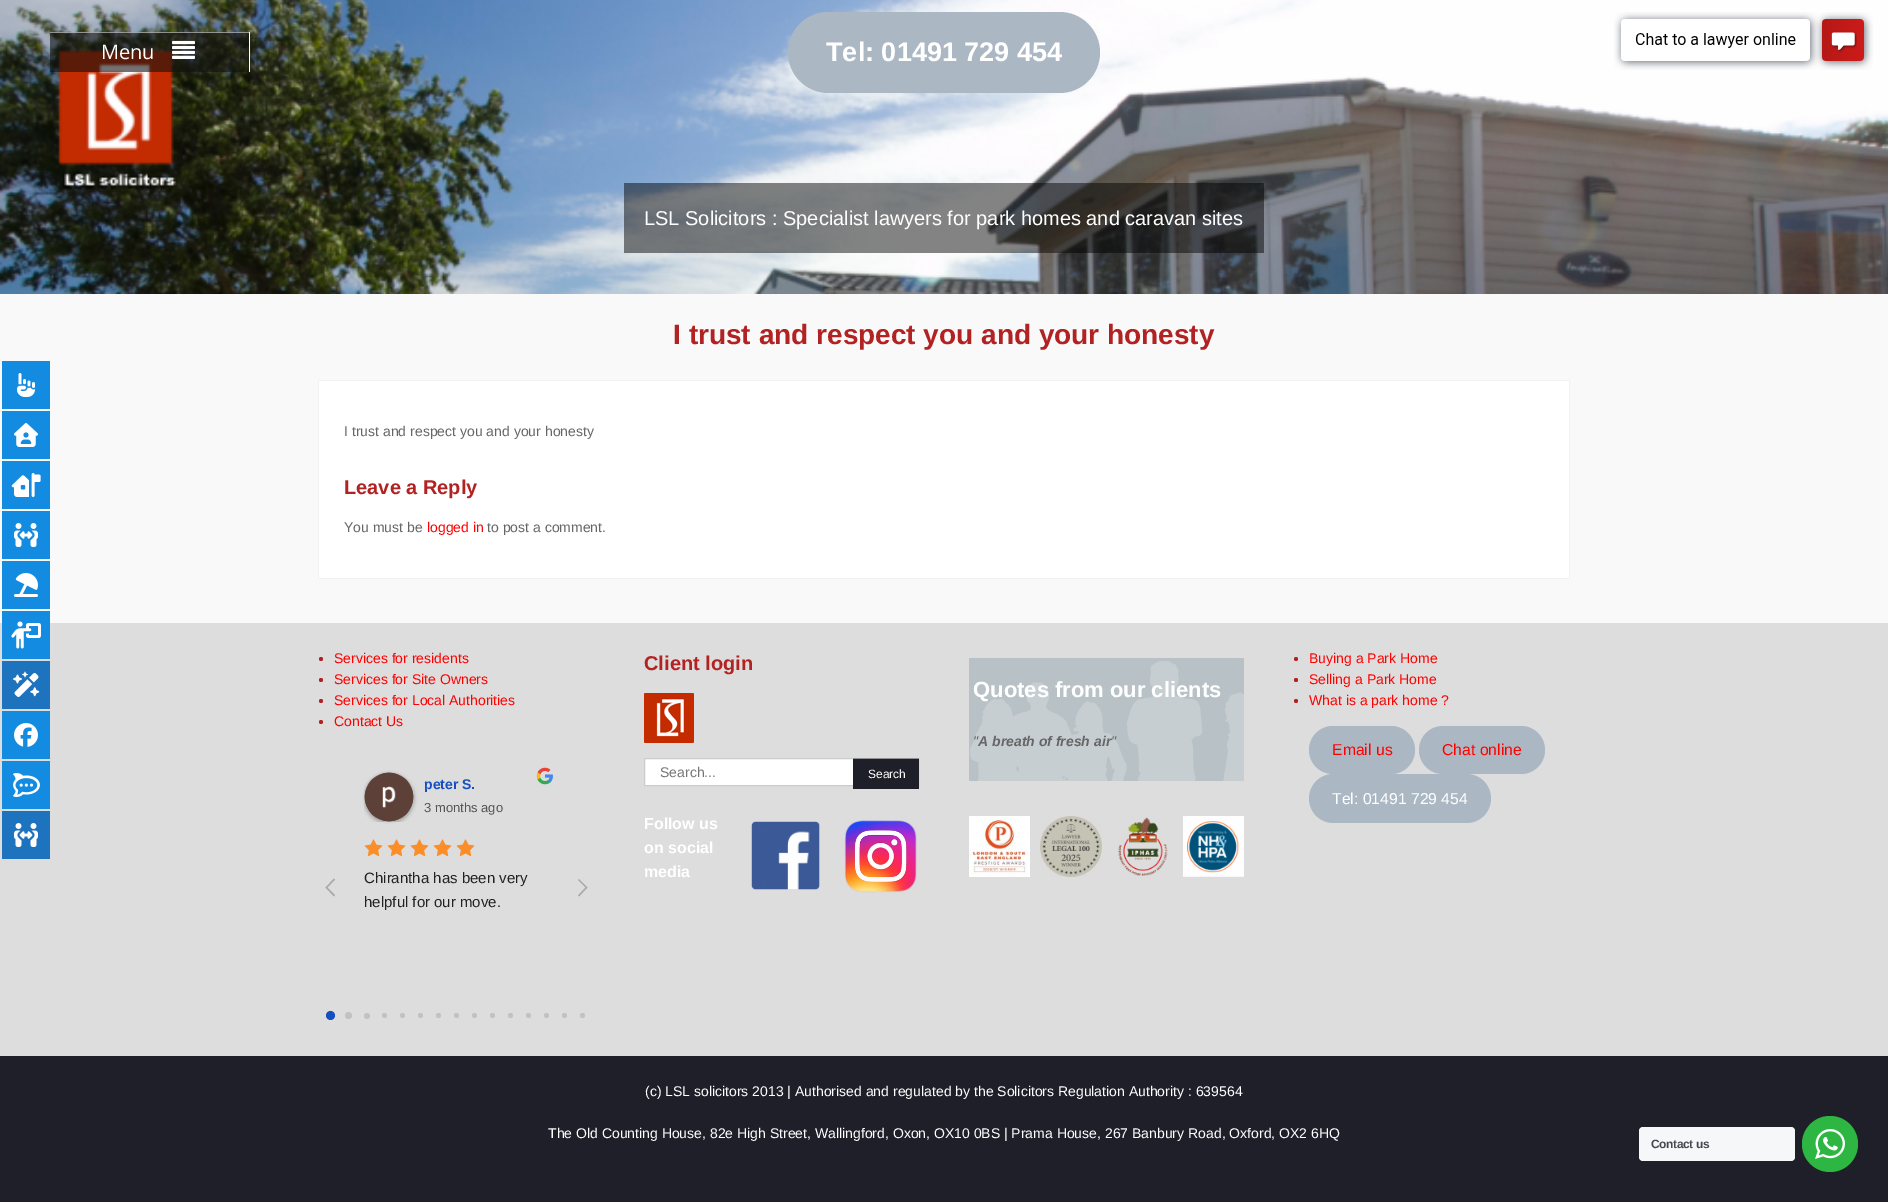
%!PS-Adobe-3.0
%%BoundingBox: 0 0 1888 1202
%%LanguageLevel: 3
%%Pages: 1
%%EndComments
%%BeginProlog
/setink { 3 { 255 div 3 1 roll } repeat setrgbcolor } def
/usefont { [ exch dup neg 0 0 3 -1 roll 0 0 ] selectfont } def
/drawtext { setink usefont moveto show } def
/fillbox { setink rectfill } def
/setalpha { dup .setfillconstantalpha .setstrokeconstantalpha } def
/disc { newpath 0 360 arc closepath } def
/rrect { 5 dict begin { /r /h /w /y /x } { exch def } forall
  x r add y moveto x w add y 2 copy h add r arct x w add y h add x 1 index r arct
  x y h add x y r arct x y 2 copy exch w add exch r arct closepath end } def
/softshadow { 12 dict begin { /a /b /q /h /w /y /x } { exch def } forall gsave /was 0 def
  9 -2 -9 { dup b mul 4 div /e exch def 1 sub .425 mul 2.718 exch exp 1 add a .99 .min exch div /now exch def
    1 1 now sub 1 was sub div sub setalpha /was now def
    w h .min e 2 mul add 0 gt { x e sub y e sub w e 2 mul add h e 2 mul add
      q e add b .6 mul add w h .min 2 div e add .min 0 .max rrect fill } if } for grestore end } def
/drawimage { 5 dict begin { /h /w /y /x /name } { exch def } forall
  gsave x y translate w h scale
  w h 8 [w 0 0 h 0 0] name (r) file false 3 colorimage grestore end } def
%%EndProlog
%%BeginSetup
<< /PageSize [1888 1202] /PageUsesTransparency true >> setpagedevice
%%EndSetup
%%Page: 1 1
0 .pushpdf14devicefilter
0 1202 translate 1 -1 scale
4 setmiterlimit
0 0 1888 1202 249 249 249 fillbox
(assets/img2.rgb) 0 0 1888 294 drawimage
0.19 setalpha
50 32 199 40 0 0 0 fillbox
1 setalpha
249 32 1 40 255 255 255 fillbox
0.49 setalpha
50 32 199 40 19 18 18 fillbox
0.5 setalpha
50 32 199 1 255 255 255 fillbox
1 setalpha
(Menu) 101 59 /OpenSans-Regular 20 255 255 255 drawtext
(assets/img1.rgb) 172 40 23 19 drawimage
171 184 195 setink
788 12 312 81 40.5 rrect fill
(Tel: 01491 729 454) 826 61 /LiberationSans-Bold 27 255 255 255 drawtext
0.48 setalpha
624 183 640 70 0 0 0 fillbox
1 setalpha
(LSL Solicitors : Specialist lawyers for park homes and caravan sites) 644 225 /LiberationSans-Regular 20 255 255 255 drawtext
(I trust and respect you and your honesty) 673 344 /LiberationSans-Bold 28 178 34 34 drawtext
221 221 221 setink
319 381 1250 197 0 0.5 1 softshadow
319 381 1250 197 255 255 255 fillbox
(I trust and respect you and your honesty) 344 436 /LiberationSans-Regular 14 102 102 102 drawtext
(Leave a Reply) 344 494 /LiberationSans-Bold 20 178 34 34 drawtext
(You must be) 344 532 /LiberationSans-Regular 14 102 102 102 drawtext
(logged in) 427 532 /LiberationSans-Regular 14 255 0 0 drawtext
(to post a comment.) 487 532 /LiberationSans-Regular 14 102 102 102 drawtext
0 623 1888 433 221 221 221 fillbox
178 34 34 setink
321 659 2 disc fill
(Services for residents) 334 663 /LiberationSans-Regular 14 255 0 0 drawtext
178 34 34 setink
321 680 2 disc fill
(Services for Site Owners) 334 684 /LiberationSans-Regular 14 255 0 0 drawtext
178 34 34 setink
321 701 2 disc fill
(Services for Local Authorities) 334 705 /LiberationSans-Regular 14 255 0 0 drawtext
178 34 34 setink
321 722 2 disc fill
(Contact Us) 334 726 /LiberationSans-Regular 14 255 0 0 drawtext
(assets/img3.rgb) 536 767 17 18 drawimage
gsave
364 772 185 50 rectclip
0 0 0 setink
364 774 50 50 25 2 0.24 softshadow
grestore
0 0 0 setink
364 772 50 50 25 1 0.12 softshadow
(assets/img4.rgb) 364 772 50 50 drawimage
(peter S.) 424 789 /LiberationSans-Bold 14 21 79 193 drawtext
(3 months ago) 424 812 /LiberationSans-Regular 13 85 85 85 drawtext
(assets/img5.rgb) 364 839 19 18 drawimage
(assets/img5.rgb) 387 839 19 18 drawimage
(assets/img5.rgb) 410 839 19 18 drawimage
(assets/img5.rgb) 433 839 19 18 drawimage
(assets/img5.rgb) 456 839 19 18 drawimage
(Chirantha has been very) 364 883 /LiberationSans-Regular 15 34 34 34 drawtext
(helpful for our move.) 364 907 /LiberationSans-Regular 15 34 34 34 drawtext
170 170 170 setink
334 896.5 moveto 325.5 887.5 lineto 334 878.5 lineto 335 879.5 lineto 327.5 887.5 lineto 335 895 lineto closepath fill
579 896.5 moveto 578 895.5 lineto 585.5 887.5 lineto 578 880 lineto 579 879 lineto 587.5 887.5 lineto closepath fill
21 79 193 setink
330.5 1015.5 4.5 disc fill
194 194 194 setink
348.5 1015.5 3.5 disc fill
367 1016 3 disc fill
384.5 1015.5 2.5 disc fill
402.5 1015.5 2.5 disc fill
420.5 1015.5 2.5 disc fill
438.5 1015.5 2.5 disc fill
456.5 1015.5 2.5 disc fill
474.5 1015.5 2.5 disc fill
492.5 1015.5 2.5 disc fill
510.5 1015.5 2.5 disc fill
528.5 1015.5 2.5 disc fill
546.5 1015.5 2.5 disc fill
564.5 1015.5 2.5 disc fill
582.5 1015.5 2.5 disc fill
(Client login) 644 670 /LiberationSans-Bold 20 178 34 34 drawtext
(assets/img6.rgb) 644 693 50 50 drawimage
645 759 208 26 255 255 255 fillbox
204 204 204 setink
644.5 758.5 274 27 rectstroke
(Search...) 660 777 /LiberationSans-Regular 14 117 117 117 drawtext
853 759 66 30 31 31 41 fillbox
853 758 66 1 143 143 148 fillbox
(Search) 868 778 /LiberationSans-Regular 12 255 255 255 drawtext
(Follow us) 644 829 /LiberationSans-Bold 16 255 255 255 drawtext
(on social) 644 853 /LiberationSans-Bold 16 255 255 255 drawtext
(media) 644 877 /LiberationSans-Bold 16 255 255 255 drawtext
(assets/img7.rgb) 751 821 69 69 drawimage
(assets/img8.rgb) 844 820 73 73 drawimage
184 194 198 setink
969 658 275 123 1 rrect fill
(assets/img9.rgb) 970 661 274 120 drawimage
(Quotes from our clients) 973 697 /LiberationSans-Bold 22 255 255 255 drawtext
(") 973 746 /LiberationSans-Italic 14 102 102 102 drawtext
(A breath of fresh air) 978 746 /LiberationSans-BoldItalic 14 102 102 102 drawtext
(") 1111 746 /LiberationSans-Italic 14 102 102 102 drawtext
(assets/img10.rgb) 969 816 61 61 drawimage
(assets/img11.rgb) 1040 816 62 61 drawimage
(assets/img12.rgb) 1118 817 50 59 drawimage
(assets/img13.rgb) 1183 816 61 61 drawimage
178 34 34 setink
1296 659 2 disc fill
(Buying a Park Home) 1309 663 /LiberationSans-Regular 14 255 0 0 drawtext
178 34 34 setink
1296 680 2 disc fill
(Selling a Park Home) 1309 684 /LiberationSans-Regular 14 255 0 0 drawtext
178 34 34 setink
1296 701 2 disc fill
(What is a park home ?) 1309 705 /LiberationSans-Regular 14 255 0 0 drawtext
171 184 195 setink
1309 726 106 48 24 rrect fill
(Email us) 1332 755 /LiberationSans-Regular 15.75 255 0 0 drawtext
171 184 195 setink
1419 726 126 48 24 rrect fill
(Chat online) 1442 755 /LiberationSans-Regular 15.75 255 0 0 drawtext
171 184 195 setink
1309 774 182 49 24.5 rrect fill
(Tel: 01491 729 454) 1332 804 /LiberationSans-Regular 15.75 255 255 255 drawtext
0 1056 1888 146 31 31 41 fillbox
(\(c\) LSL solicitors 2013 | Authorised and regulated by the Solicitors Regulation Authority : 639564) 645 1096 /LiberationSans-Regular 14 255 255 255 drawtext
(The Old Counting House, 82e High Street, Wallingford, Oxon, OX10 0BS | Prama House, 267 Banbury Road, Oxford, OX2 6HQ) 548 1138 /LiberationSans-Regular 14 255 255 255 drawtext
(assets/img14.rgb) 1614 12 259 58 drawimage
2 361 48 48 18 139 224 fillbox
(assets/img15.rgb) 17 373 18 24 drawimage
2 411 48 48 18 139 224 fillbox
(assets/img16.rgb) 14 423 24 24 drawimage
2 461 48 48 18 139 224 fillbox
(assets/img17.rgb) 11 473 30 24 drawimage
2 511 48 48 18 139 224 fillbox
(assets/img18.rgb) 14 523 24 24 drawimage
2 561 48 48 18 139 224 fillbox
(assets/img19.rgb) 14 573 24 24 drawimage
2 611 48 48 18 139 224 fillbox
(assets/img20.rgb) 11 621 30 28 drawimage
2 661 48 48 30 115 190 fillbox
(assets/img21.rgb) 13 671 27 26 drawimage
2 711 48 48 18 139 224 fillbox
(assets/img22.rgb) 14 723 24 24 drawimage
2 761 48 48 18 139 224 fillbox
(assets/img23.rgb) 13 773 27 24 drawimage
2 811 48 48 30 115 190 fillbox
(assets/img24.rgb) 14 823 24 24 drawimage
245 247 249 setink
1639 1127 156 34 4 rrect fill
/LiberationSans-Bold 12 usefont
67 71 78 setink
1651 1148 moveto -0.4 0 (Contact us) ashow
45 183 66 setink
1830 1144 28 disc fill
(assets/img25.rgb) 1815 1129 30 30 drawimage
.poppdf14devicefilter showpage
%%EOF
